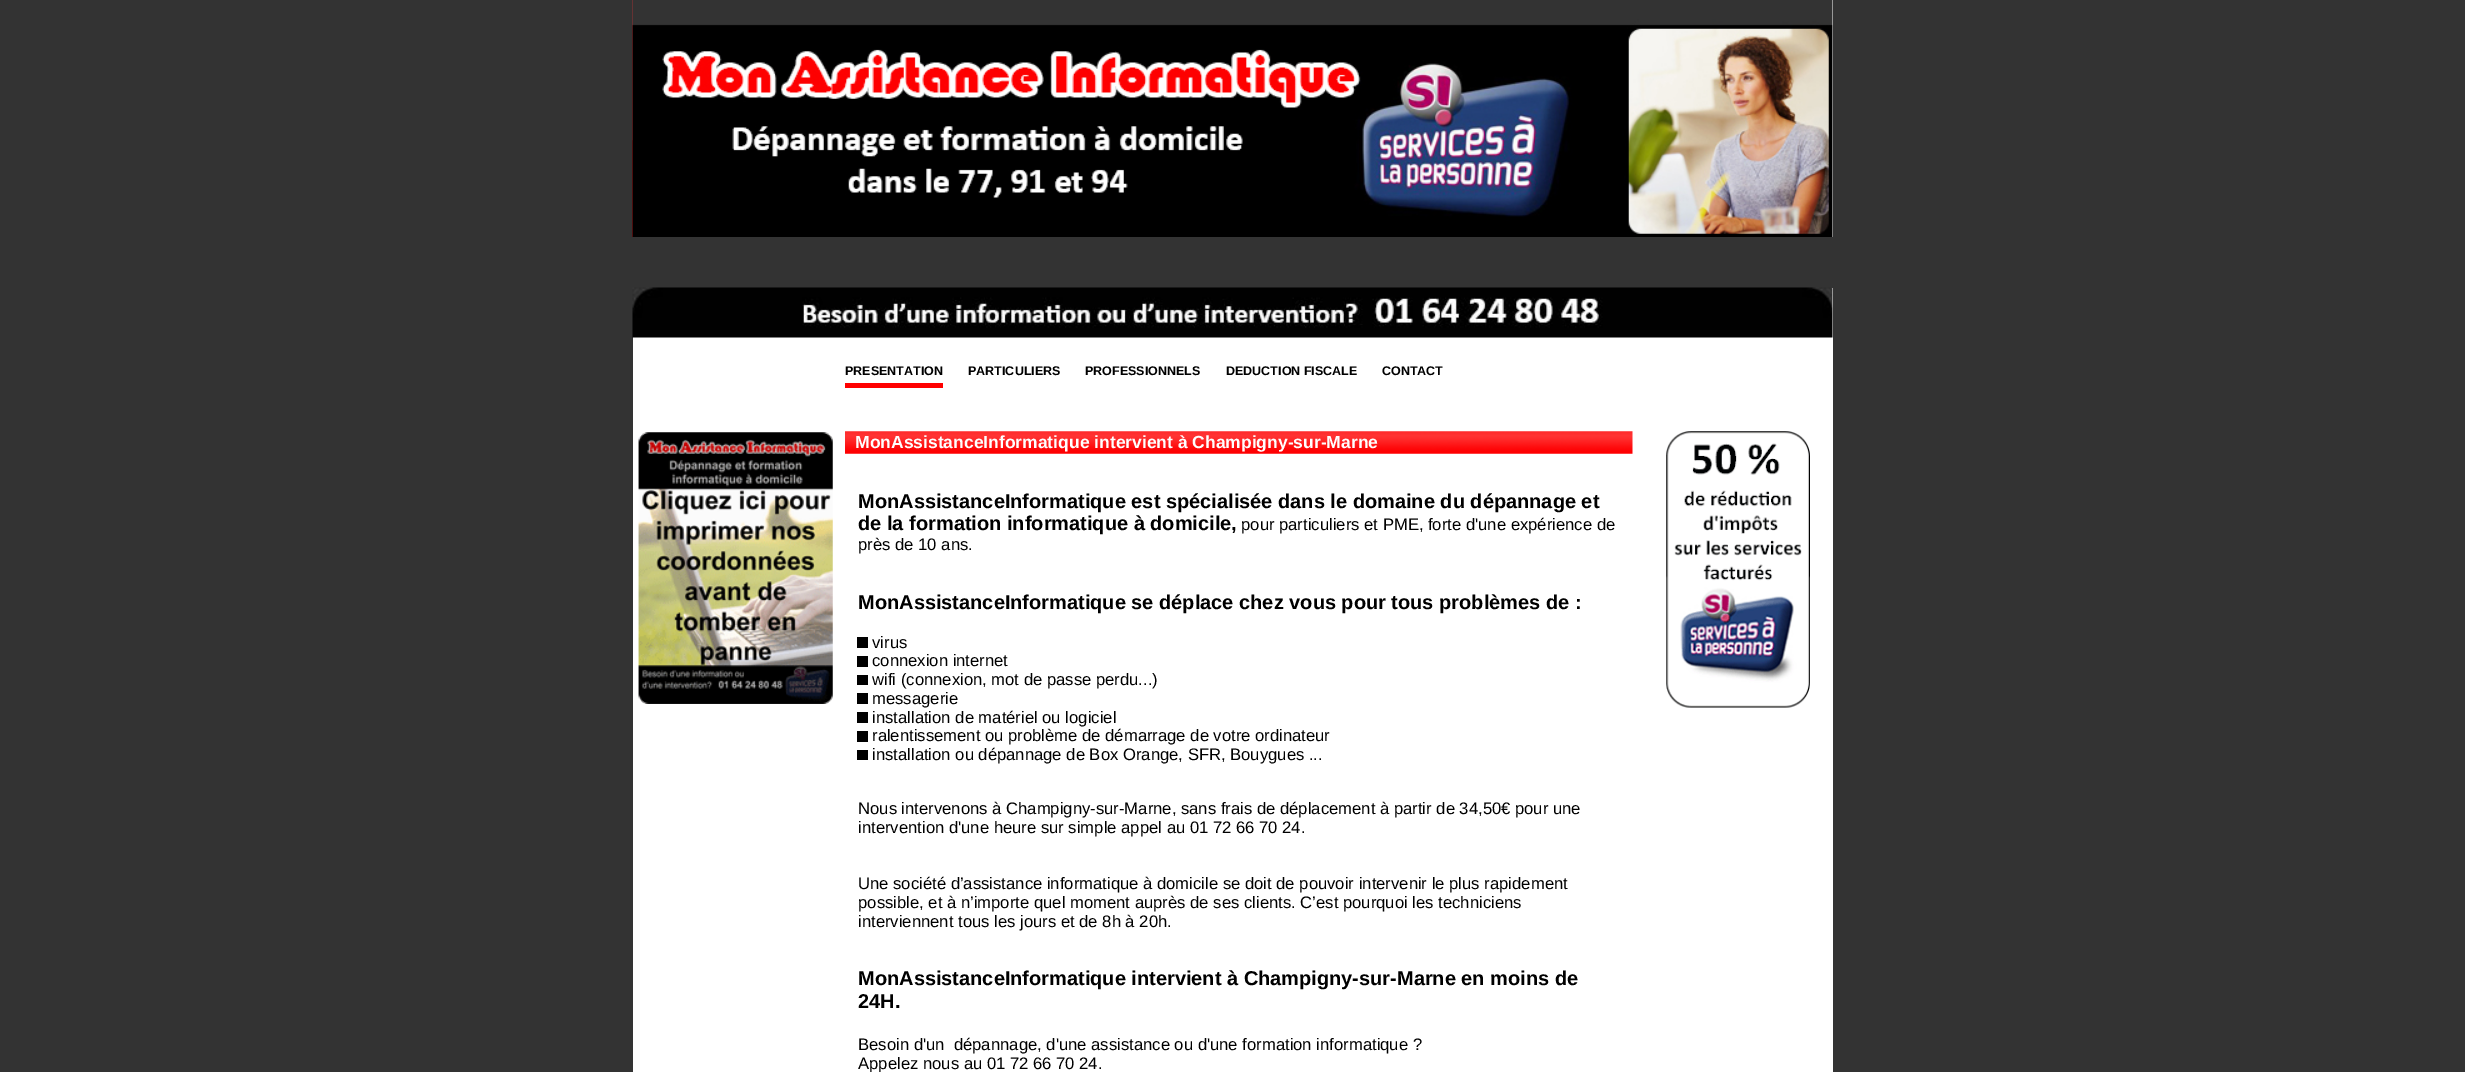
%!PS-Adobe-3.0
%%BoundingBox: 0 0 2465 1072
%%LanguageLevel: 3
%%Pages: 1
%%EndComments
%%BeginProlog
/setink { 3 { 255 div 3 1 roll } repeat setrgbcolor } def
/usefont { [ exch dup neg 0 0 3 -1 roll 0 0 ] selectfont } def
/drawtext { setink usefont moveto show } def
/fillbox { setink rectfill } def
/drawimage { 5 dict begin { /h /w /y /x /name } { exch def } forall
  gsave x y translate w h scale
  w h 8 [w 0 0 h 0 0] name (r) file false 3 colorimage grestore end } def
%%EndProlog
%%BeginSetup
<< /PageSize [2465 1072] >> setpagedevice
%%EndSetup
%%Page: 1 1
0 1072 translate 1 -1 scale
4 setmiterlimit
0 0 2465 1072 51 51 51 fillbox
633 0 1200 1072 255 255 255 fillbox
(assets/img1.rgb) 632 0 1 237 drawimage
(assets/img2.rgb) 632 0 1201 237 drawimage
633 237 1200 51 51 51 51 fillbox
(assets/img3.rgb) 632 287 1201 51 drawimage
845 383 98 5 255 0 0 fillbox
(PRESENTATION) 845 375 /LiberationSans-Bold 12.5 0 0 0 drawtext
(PARTICULIERS) 968 375 /LiberationSans-Bold 12.5 0 0 0 drawtext
(PROFESSIONNELS) 1085 375 /LiberationSans-Bold 12.5 0 0 0 drawtext
(DEDUCTION FISCALE) 1226 375 /LiberationSans-Bold 12.5 0 0 0 drawtext
(CONTACT) 1382 375 /LiberationSans-Bold 12.5 0 0 0 drawtext
(assets/img4.rgb) 638 432 195 272 drawimage
(assets/img5.rgb) 1666 431 144 277 drawimage
(assets/img6.rgb) 638 432 195 272 drawimage
(assets/img7.rgb) 845 431 788 23 drawimage
(MonAssistanceInformatique intervient à Champigny-sur-Marne) 855 448 /LiberationSans-Bold 17.5 255 255 255 drawtext
(MonAssistanceInformatique est spécialisée dans le domaine du dépannage et) 858 508 /LiberationSans-Bold 20 0 0 0 drawtext
(de la formation informatique à domicile,) 858 530 /LiberationSans-Bold 20 0 0 0 drawtext
(pour particuliers et PME, forte d'une expérience de) 1241 530 /LiberationSans-Regular 16.65 0 0 0 drawtext
(près de 10 ans.) 858 550 /LiberationSans-Regular 16.65 0 0 0 drawtext
(MonAssistanceInformatique se déplace chez vous pour tous problèmes de :) 858 609 /LiberationSans-Bold 20 0 0 0 drawtext
857 637 11 11 0 0 0 fillbox
(virus) 872 648 /LiberationSans-Regular 16.65 0 0 0 drawtext
857 656 11 11 0 0 0 fillbox
(connexion internet) 872 666 /LiberationSans-Regular 16.65 0 0 0 drawtext
857 675 11 10 0 0 0 fillbox
(wifi \(connexion, mot de passe perdu...\)) 872 685 /LiberationSans-Regular 16.65 0 0 0 drawtext
857 693 11 11 0 0 0 fillbox
(messagerie) 872 704 /LiberationSans-Regular 16.65 0 0 0 drawtext
857 712 11 11 0 0 0 fillbox
(installation de matériel ou logiciel) 872 723 /LiberationSans-Regular 16.65 0 0 0 drawtext
857 731 11 11 0 0 0 fillbox
(ralentissement ou problème de démarrage de votre ordinateur) 872 741 /LiberationSans-Regular 16.65 0 0 0 drawtext
857 750 11 10 0 0 0 fillbox
(installation ou dépannage de Box Orange, SFR, Bouygues ...) 872 760 /LiberationSans-Regular 16.65 0 0 0 drawtext
(Nous intervenons à Champigny-sur-Marne, sans frais de déplacement à partir de 34,50€ pour une) 858 814 /LiberationSans-Regular 16.65 0 0 0 drawtext
(intervention d'une heure sur simple appel au 01 72 66 70 24.) 858 833 /LiberationSans-Regular 16.65 0 0 0 drawtext
(Une société d’assistance informatique à domicile se doit de pouvoir intervenir le plus rapidement) 858 889 /LiberationSans-Regular 16.65 0 0 0 drawtext
(possible, et à n’importe quel moment auprès de ses clients. C’est pourquoi les techniciens) 858 908 /LiberationSans-Regular 16.65 0 0 0 drawtext
(interviennent tous les jours et de 8h à 20h.) 858 927 /LiberationSans-Regular 16.65 0 0 0 drawtext
(MonAssistanceInformatique intervient à Champigny-sur-Marne en moins de) 858 985 /LiberationSans-Bold 20 0 0 0 drawtext
(24H.) 858 1008 /LiberationSans-Bold 20 0 0 0 drawtext
(Besoin d'un  dépannage, d'une assistance ou d'une formation informatique ?) 858 1050 /LiberationSans-Regular 16.65 0 0 0 drawtext
(Appelez nous au 01 72 66 70 24.) 858 1069 /LiberationSans-Regular 16.65 0 0 0 drawtext
showpage
%%EOF
